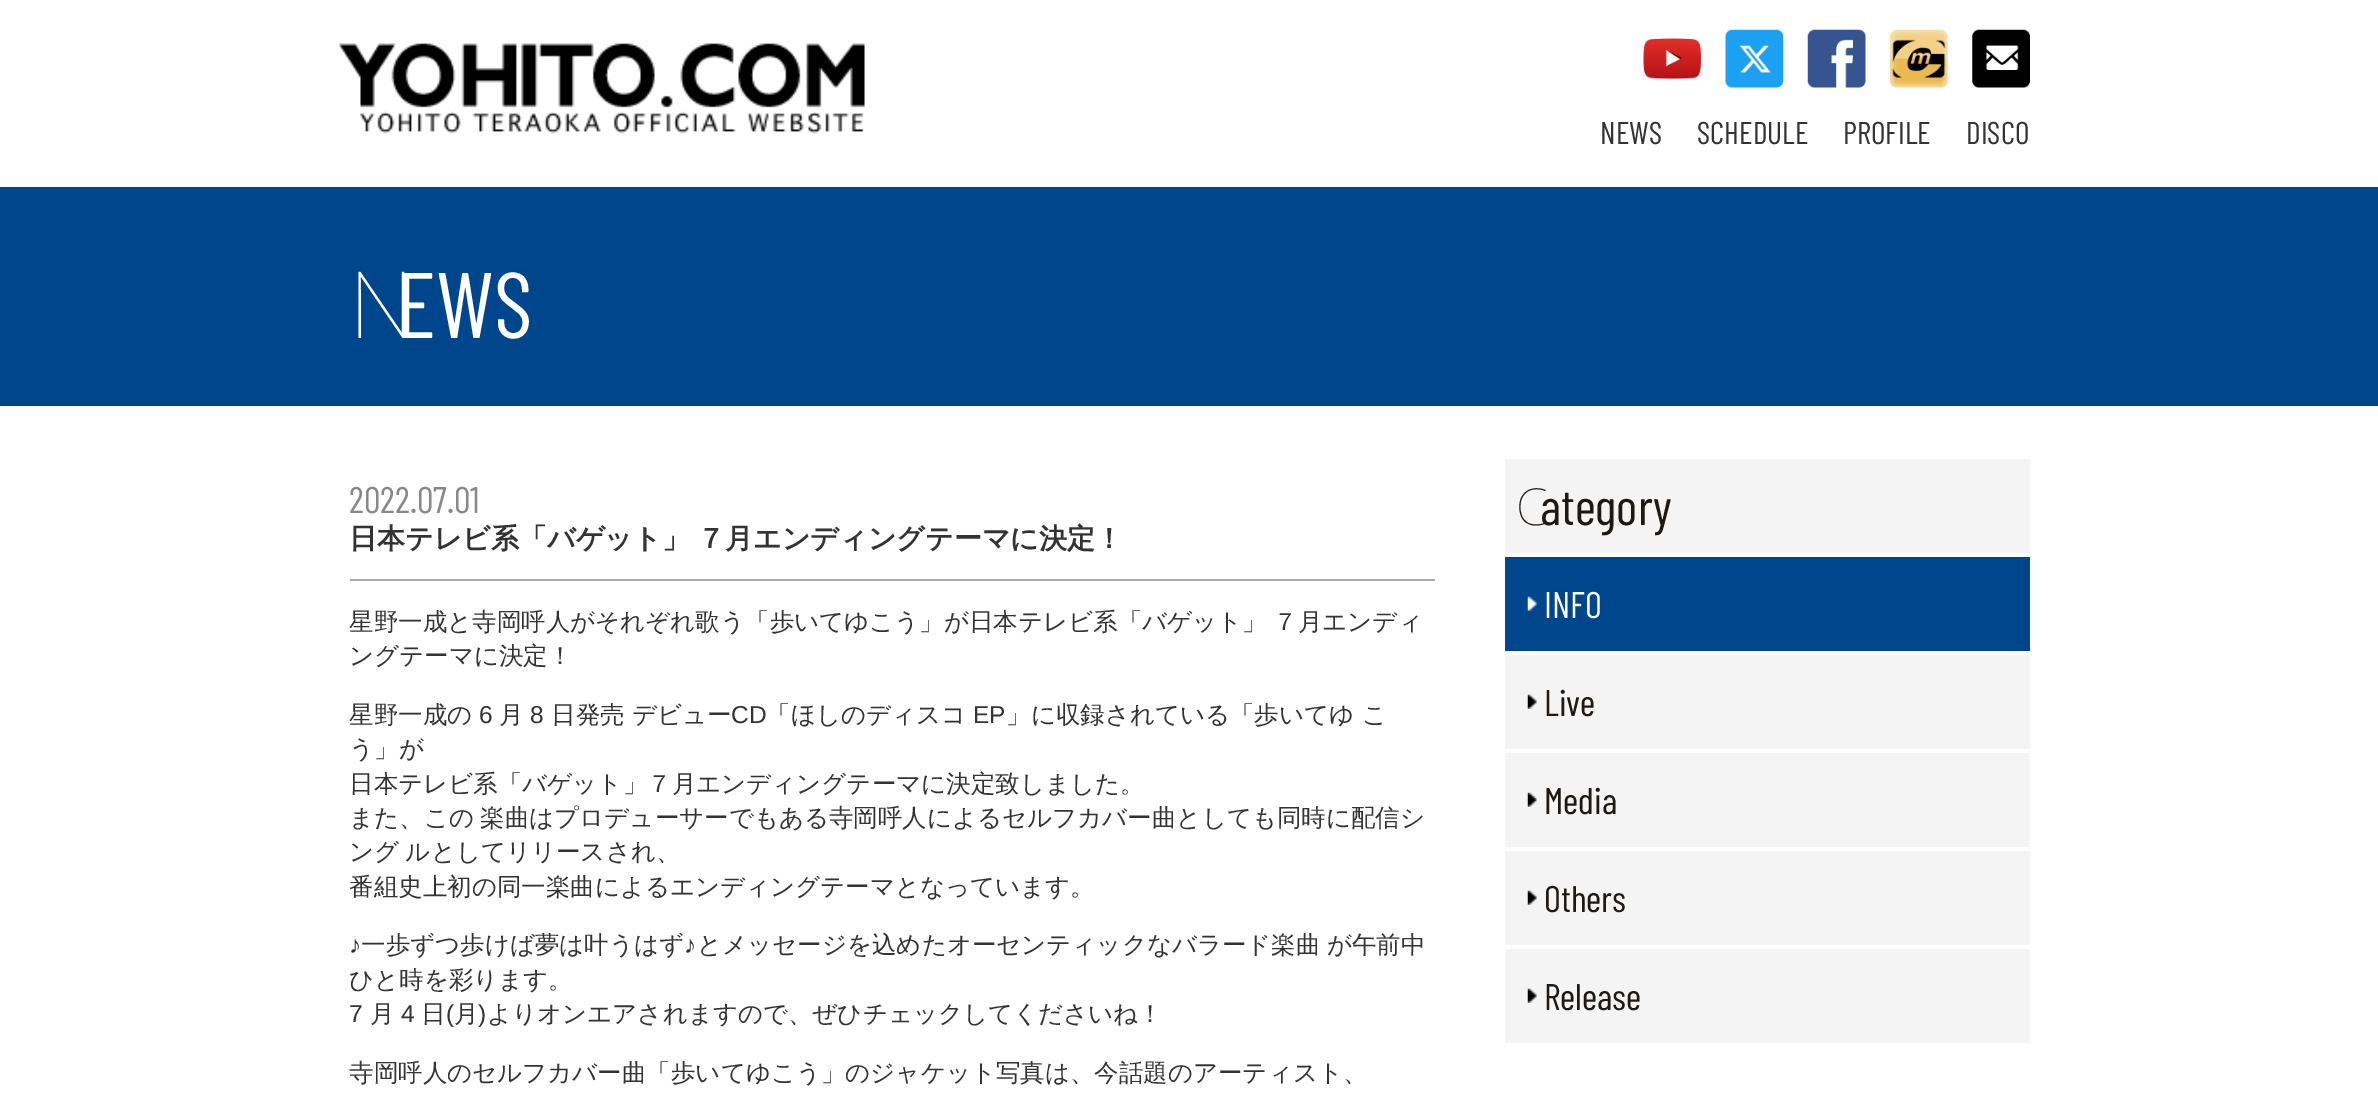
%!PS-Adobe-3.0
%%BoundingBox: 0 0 2378 1093
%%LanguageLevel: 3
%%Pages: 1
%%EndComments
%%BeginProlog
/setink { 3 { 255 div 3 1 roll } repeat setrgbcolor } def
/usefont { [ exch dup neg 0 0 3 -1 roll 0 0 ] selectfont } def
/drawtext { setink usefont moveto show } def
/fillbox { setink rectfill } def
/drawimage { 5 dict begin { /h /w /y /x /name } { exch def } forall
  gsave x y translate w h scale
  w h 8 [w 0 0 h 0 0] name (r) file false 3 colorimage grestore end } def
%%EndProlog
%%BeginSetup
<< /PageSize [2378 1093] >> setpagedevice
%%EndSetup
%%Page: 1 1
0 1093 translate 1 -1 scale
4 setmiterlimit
0 0 2378 1093 255 255 255 fillbox
(assets/img1.rgb) 339 43 526 91 drawimage
(assets/img2.rgb) 1643 38 58 42 drawimage
(assets/img3.rgb) 1725 29 59 59 drawimage
(assets/img4.rgb) 1807 29 59 59 drawimage
(assets/img5.rgb) 1890 29 58 59 drawimage
(assets/img6.rgb) 1972 29 58 59 drawimage
(NEWS) 1600 144 /BarlowCondensed-Regular 31.5 51 51 51 drawtext
(SCHEDULE) 1697 144 /BarlowCondensed-Regular 31.5 51 51 51 drawtext
(PROFILE) 1843 144 /BarlowCondensed-Regular 31.5 51 51 51 drawtext
(DISCO) 1966 144 /BarlowCondensed-Regular 31.5 51 51 51 drawtext
0 187 2378 219 0 70 140 fillbox
(N) 349 338 /NotoSans-Thin 93 255 255 255 drawtext
(EWS) 396 338 /BarlowCondensed-Regular 93 255 255 255 drawtext
350 579 1085 2 170 170 170 fillbox
(2022.07.01) 349 513 /BarlowCondensed-Regular 37 136 136 136 drawtext
/WenQuanYiZenHei-Bold 28 usefont
51 51 51 setink
349 548 moveto -1 0 32 (日本テレビ系「バゲット」 ７月エンディングテーマに決定！) widthshow
/WenQuanYiZenHei-Medium 24.5 usefont
349 630 moveto -1 0 32 (星野一成と寺岡呼人がそれぞれ歌う「歩いてゆこう」が日本テレビ系「バゲット」 ７月エンディ) widthshow
(ングテーマに決定！) 349 664 /WenQuanYiZenHei-Medium 24.5 51 51 51 drawtext
(星野一成の) 349 723 /WenQuanYiZenHei-Medium 24.5 51 51 51 drawtext
(6) 479 723 /LiberationSans-Regular 24.5 51 51 51 drawtext
(月) 499 723 /WenQuanYiZenHei-Medium 24.5 51 51 51 drawtext
(8) 530 723 /LiberationSans-Regular 24.5 51 51 51 drawtext
(日発売 デビュー) 551 723 /WenQuanYiZenHei-Medium 24.5 51 51 51 drawtext
(CD) 731 723 /LiberationSans-Regular 24.5 51 51 51 drawtext
(「ほしのディスコ) 766 723 /WenQuanYiZenHei-Medium 24.5 51 51 51 drawtext
(EP) 973 723 /LiberationSans-Regular 24.5 51 51 51 drawtext
(」に収録されている「歩いてゆ こ) 1006 723 /WenQuanYiZenHei-Medium 24.5 51 51 51 drawtext
(う」が) 349 757 /WenQuanYiZenHei-Medium 24.5 51 51 51 drawtext
(日本テレビ系「バゲット」７月エンディングテーマに決定致しました。) 349 792 /WenQuanYiZenHei-Medium 24.5 51 51 51 drawtext
349 826 moveto -1 0 32 (また、この 楽曲はプロデューサーでもある寺岡呼人によるセルフカバー曲としても同時に配信シ) widthshow
349 860 moveto -1 0 32 (ング ルとしてリリースされ、) widthshow
(番組史上初の同一楽曲によるエンディングテーマとなっています。) 349 895 /WenQuanYiZenHei-Medium 24.5 51 51 51 drawtext
(♪) 349 953 /LiberationSans-Regular 24.5 51 51 51 drawtext
(一歩ずつ歩けば夢は叶うはず) 361 953 /WenQuanYiZenHei-Medium 24.5 51 51 51 drawtext
(♪) 684 953 /LiberationSans-Regular 24.5 51 51 51 drawtext
/WenQuanYiZenHei-Medium 24.5 usefont
697 953 moveto -1 0 32 (とメッセージを込めたオーセンティックなバラード楽曲 が午前中) widthshow
(ひと時を彩ります。) 349 988 /WenQuanYiZenHei-Medium 24.5 51 51 51 drawtext
(7) 349 1022 /LiberationSans-Regular 24.5 51 51 51 drawtext
(月) 370 1022 /WenQuanYiZenHei-Medium 24.5 51 51 51 drawtext
(4) 401 1022 /LiberationSans-Regular 24.5 51 51 51 drawtext
(日) 421 1022 /WenQuanYiZenHei-Medium 24.5 51 51 51 drawtext
(\() 446 1022 /LiberationSans-Regular 24.5 51 51 51 drawtext
(月) 454 1022 /WenQuanYiZenHei-Medium 24.5 51 51 51 drawtext
(\)) 478 1022 /LiberationSans-Regular 24.5 51 51 51 drawtext
(よりオンエアされますので、ぜひチェックしてくださいね！) 487 1022 /WenQuanYiZenHei-Medium 24.5 51 51 51 drawtext
(寺岡呼人のセルフカバー曲「歩いてゆこう」のジャケット写真は、今話題のアーティスト、) 349 1081 /WenQuanYiZenHei-Medium 24.5 51 51 51 drawtext
1505 459 525 94 244 244 244 fillbox
(C) 1516 525 /NotoSans-Thin 51 31 24 19 drawtext
(ategory) 1540 525 /BarlowCondensed-Regular 51 31 24 19 drawtext
1505 557 525 94 0 70 140 fillbox
(assets/img7.rgb) 1527 596 10 15 drawimage
(INFO) 1544 618 /BarlowCondensed-Regular 37 255 255 255 drawtext
1505 655 525 94 244 244 244 fillbox
(assets/img8.rgb) 1527 694 10 15 drawimage
(Live) 1544 716 /BarlowCondensed-Regular 37 31 24 19 drawtext
1505 753 525 94 244 244 244 fillbox
(assets/img8.rgb) 1527 792 10 15 drawimage
(Media) 1544 814 /BarlowCondensed-Regular 37 31 24 19 drawtext
1505 851 525 94 244 244 244 fillbox
(assets/img8.rgb) 1527 890 10 15 drawimage
(Others) 1544 912 /BarlowCondensed-Regular 37 31 24 19 drawtext
1505 949 525 94 244 244 244 fillbox
(assets/img8.rgb) 1527 988 10 15 drawimage
(Release) 1544 1010 /BarlowCondensed-Regular 37 31 24 19 drawtext
showpage
%%EOF
